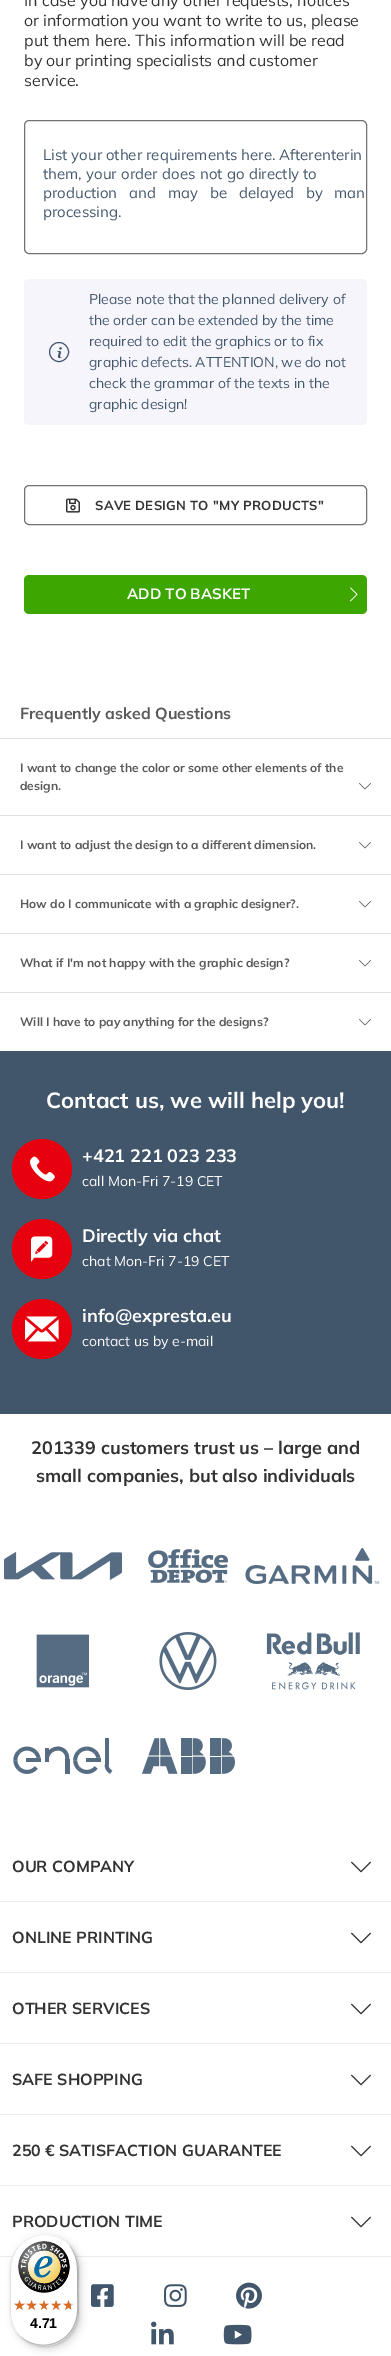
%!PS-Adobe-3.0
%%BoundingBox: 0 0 391 2356
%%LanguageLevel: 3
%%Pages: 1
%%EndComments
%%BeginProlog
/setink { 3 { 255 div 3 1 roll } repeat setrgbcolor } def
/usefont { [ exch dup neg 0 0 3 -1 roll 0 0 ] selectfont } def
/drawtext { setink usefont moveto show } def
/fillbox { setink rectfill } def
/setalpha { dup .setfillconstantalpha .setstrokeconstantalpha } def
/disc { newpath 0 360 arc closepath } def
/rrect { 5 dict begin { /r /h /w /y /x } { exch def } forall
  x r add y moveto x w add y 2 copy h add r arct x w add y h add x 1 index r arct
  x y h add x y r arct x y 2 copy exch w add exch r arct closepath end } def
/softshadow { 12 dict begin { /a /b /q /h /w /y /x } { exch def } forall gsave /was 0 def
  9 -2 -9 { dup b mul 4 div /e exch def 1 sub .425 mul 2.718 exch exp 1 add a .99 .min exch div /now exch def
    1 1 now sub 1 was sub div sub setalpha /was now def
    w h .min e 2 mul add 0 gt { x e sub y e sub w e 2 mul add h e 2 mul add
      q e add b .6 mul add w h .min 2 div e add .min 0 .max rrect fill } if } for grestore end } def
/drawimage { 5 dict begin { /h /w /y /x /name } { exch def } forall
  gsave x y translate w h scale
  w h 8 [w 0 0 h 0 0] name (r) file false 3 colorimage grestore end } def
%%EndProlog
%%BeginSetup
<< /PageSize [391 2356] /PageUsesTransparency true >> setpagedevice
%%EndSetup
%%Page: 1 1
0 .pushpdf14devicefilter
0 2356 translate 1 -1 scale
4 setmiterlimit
0 0 391 2356 255 255 255 fillbox
(In case you have any other requests, notices) 24 6 /Mulish-Regular 16 51 51 51 drawtext
(or information you want to write to us, please) 24 26 /Mulish-Regular 16 51 51 51 drawtext
(put them here. This information will be read) 24 46 /Mulish-Regular 16 51 51 51 drawtext
(by our printing specialists and customer) 24 66 /Mulish-Regular 16 51 51 51 drawtext
(service.) 24 86 /Mulish-Regular 16 51 51 51 drawtext
114 114 114 setink
24.5 120.5 342 133 4.5 rrect stroke
(List your other requirements here. Afterenterin) 43 160 /Mulish-Regular 15 66 86 107 drawtext
43 179 moveto 0.5 0 32 (them, your order does not go directly) widthshow
(to) 303 179 /Mulish-Regular 15 66 86 107 drawtext
43 198 moveto 8 0 32 (production and may be delayed by) widthshow
(man) 334 198 /Mulish-Regular 15 66 86 107 drawtext
(processing.) 43 217 /Mulish-Regular 15 66 86 107 drawtext
245 245 251 setink
24 279 343 146 5 rrect fill
66 86 107 setink
59 352 9.5 disc stroke
(assets/img1.rgb) 57 347 5 12 drawimage
(Please note that the planned delivery of) 89 304 /Mulish-Regular 14 66 86 107 drawtext
(the order can be extended by the time) 89 325 /Mulish-Regular 14 66 86 107 drawtext
(required to edit the graphics or to fix) 89 346 /Mulish-Regular 14 66 86 107 drawtext
(graphic defects. ATTENTION, we do not) 89 367 /Mulish-Regular 14 66 86 107 drawtext
(check the grammar of the texts in the) 89 388 /Mulish-Regular 14 66 86 107 drawtext
(graphic design!) 89 409 /Mulish-Regular 14 66 86 107 drawtext
114 114 114 setink
24.5 485.5 342 39 4.5 rrect stroke
(assets/img2.rgb) 66 498 14 15 drawimage
/Mulish-Bold 13 usefont
51 51 51 setink
95 510 moveto 0.3 0 (SAVE DESIGN TO "MY PRODUCTS") ashow
62 166 0 setink
24 575 343 39 5 rrect fill
(ADD TO BASKET) 127 599 /Mulish-Bold 15 255 255 255 drawtext
(assets/img3.rgb) 350 587 8 15 drawimage
(Frequently asked Questions) 20 719 /Mulish-Bold 16 89 89 89 drawtext
0 738 391 1 221 226 230 fillbox
(I want to change the color or some other elements of the) 20 772 /Mulish-Bold 12 89 89 89 drawtext
(design.) 20 790 /Mulish-Bold 12 89 89 89 drawtext
(assets/img4.rgb) 359 783 12 7 drawimage
0 815 391 1 221 226 230 fillbox
(I want to adjust the design to a different dimension.) 20 849 /Mulish-Bold 12 89 89 89 drawtext
(assets/img4.rgb) 359 842 12 7 drawimage
0 874 391 1 221 226 230 fillbox
(How do I communicate with a graphic designer?.) 20 908 /Mulish-Bold 12 89 89 89 drawtext
(assets/img4.rgb) 359 901 12 7 drawimage
0 933 391 1 221 226 230 fillbox
(What if I'm not happy with the graphic design?) 20 967 /Mulish-Bold 12 89 89 89 drawtext
(assets/img4.rgb) 359 960 12 7 drawimage
0 992 391 1 221 226 230 fillbox
(Will I have to pay anything for the designs?) 20 1026 /Mulish-Bold 12 89 89 89 drawtext
(assets/img4.rgb) 359 1019 12 7 drawimage
0 1051 391 363 66 86 107 fillbox
(Contact us, we will help you!) 46 1108 /Mulish-Bold 22 255 255 255 drawtext
231 0 14 setink
42 1169 30 disc fill
(assets/img5.rgb) 30 1156 25 26 drawimage
(+421 221 023 233) 82 1162 /Mulish-Bold 18 255 255 255 drawtext
(call Mon-Fri 7-19 CET) 82 1186 /Mulish-Regular 14 255 255 255 drawtext
231 0 14 setink
42 1249 30 disc fill
(assets/img6.rgb) 31 1236 22 26 drawimage
(Directly via chat) 82 1242 /Mulish-Bold 18 255 255 255 drawtext
(chat Mon-Fri 7-19 CET) 82 1266 /Mulish-Regular 14 255 255 255 drawtext
231 0 14 setink
42 1329 30 disc fill
(assets/img7.rgb) 25 1316 34 26 drawimage
(info@expresta.eu) 82 1322 /Mulish-Bold 18 255 255 255 drawtext
(contact us by e-mail) 82 1346 /Mulish-Regular 14 255 255 255 drawtext
(201339 customers trust us – large and) 31 1454 /Mulish-Bold 18 51 51 51 drawtext
(small companies, but also individuals) 36 1482 /Mulish-Bold 18 51 51 51 drawtext
(assets/img8.rgb) 4 1552 118 28 drawimage
(assets/img9.rgb) 148 1549 80 34 drawimage
(assets/img10.rgb) 245 1548 135 36 drawimage
(assets/img11.rgb) 36 1634 53 54 drawimage
(assets/img12.rgb) 159 1632 58 58 drawimage
(assets/img13.rgb) 266 1632 94 58 drawimage
(assets/img14.rgb) 13 1738 100 36 drawimage
(assets/img15.rgb) 142 1738 93 36 drawimage
0 1901 391 1 236 236 236 fillbox
(OUR COMPANY) 12 1872 /Mulish-Bold 16 51 51 51 drawtext
(assets/img16.rgb) 351 1861 20 12 drawimage
0 1972 391 1 236 236 236 fillbox
(ONLINE PRINTING) 12 1943 /Mulish-Bold 16 51 51 51 drawtext
(assets/img16.rgb) 351 1932 20 12 drawimage
0 2043 391 1 236 236 236 fillbox
(OTHER SERVICES) 12 2014 /Mulish-Bold 16 51 51 51 drawtext
(assets/img16.rgb) 351 2003 20 12 drawimage
0 2114 391 1 236 236 236 fillbox
(SAFE SHOPPING) 12 2085 /Mulish-Bold 16 51 51 51 drawtext
(assets/img16.rgb) 351 2074 20 12 drawimage
0 2185 391 1 236 236 236 fillbox
(250 € SATISFACTION GUARANTEE) 12 2156 /Mulish-Bold 16 51 51 51 drawtext
(assets/img16.rgb) 351 2145 20 12 drawimage
0 2256 391 1 236 236 236 fillbox
(PRODUCTION TIME) 12 2227 /Mulish-Bold 16 51 51 51 drawtext
(assets/img16.rgb) 351 2216 20 12 drawimage
(assets/img17.rgb) 91 2284 23 23 drawimage
(assets/img18.rgb) 164 2284 23 23 drawimage
(assets/img19.rgb) 236 2282 26 27 drawimage
(assets/img20.rgb) 151 2321 23 24 drawimage
(assets/img21.rgb) 223 2324 29 21 drawimage
0 0 0 setink
13 2237 68 112 34 4 0.15 softshadow
11 2235 68 112 34 1 0.15 softshadow
255 255 255 setink
10 2234 68 112 34 rrect fill
229 229 229 setink
45 2235 moveto 53 2235 61 2238 67 2243 curveto 50 2228 22 2234 13 2255 curveto 8 2265 10 2279 10 2290 curveto 10 2305 7 2322 19 2335 curveto 14 2329 11 2321 11 2313 curveto 11 2269 lineto 11 2250 26 2235 45 2235 curveto closepath fill
0.2 setalpha
0 0 0 setink
21 2337 moveto 38 2352 66 2346 75 2325 curveto 80 2315 78 2301 78 2290 curveto 78 2275 81 2258 69 2245 curveto 79 2258 77 2274 77 2289 curveto 77 2300 79 2314 74 2324 curveto 66 2345 39 2351 21 2337 curveto closepath fill
50 50 50 setink
17 2333 moveto 24 2341 33 2346 44 2346 curveto 63 2346 78 2331 78 2312 curveto 78 2268 lineto 78 2257 73 2248 65 2241 curveto 72 2248 77 2257 77 2267 curveto 77 2311 lineto 77 2330 62 2345 43 2345 curveto 33 2345 24 2340 17 2333 curveto closepath fill
0.3 setalpha
255 255 255 setink
44 2346 moveto 63 2346 78 2331 78 2312 curveto 78 2330 62 2346 44 2346 curveto closepath 78 2268 moveto 78 2249 63 2234 44 2234 curveto 62 2234 78 2249 78 2268 curveto closepath eofill
1 setalpha
(assets/img22.rgb) 18 2241 52 52 drawimage
(assets/img23.rgb) 14 2300 11 10 drawimage
(assets/img24.rgb) 27 2300 10 10 drawimage
(assets/img25.rgb) 39 2300 10 10 drawimage
(assets/img26.rgb) 51 2300 11 10 drawimage
(assets/img26.rgb) 63 2300 11 10 drawimage
(assets/img27.rgb) 14 2300 11 10 drawimage
(assets/img28.rgb) 26 2300 11 10 drawimage
(assets/img29.rgb) 39 2300 10 10 drawimage
(assets/img30.rgb) 51 2300 10 10 drawimage
(assets/img31.rgb) 63 2300 8 10 drawimage
(4.71) 30 2328 /LiberationSans-Bold 14 0 0 0 drawtext
.poppdf14devicefilter showpage
%%EOF
